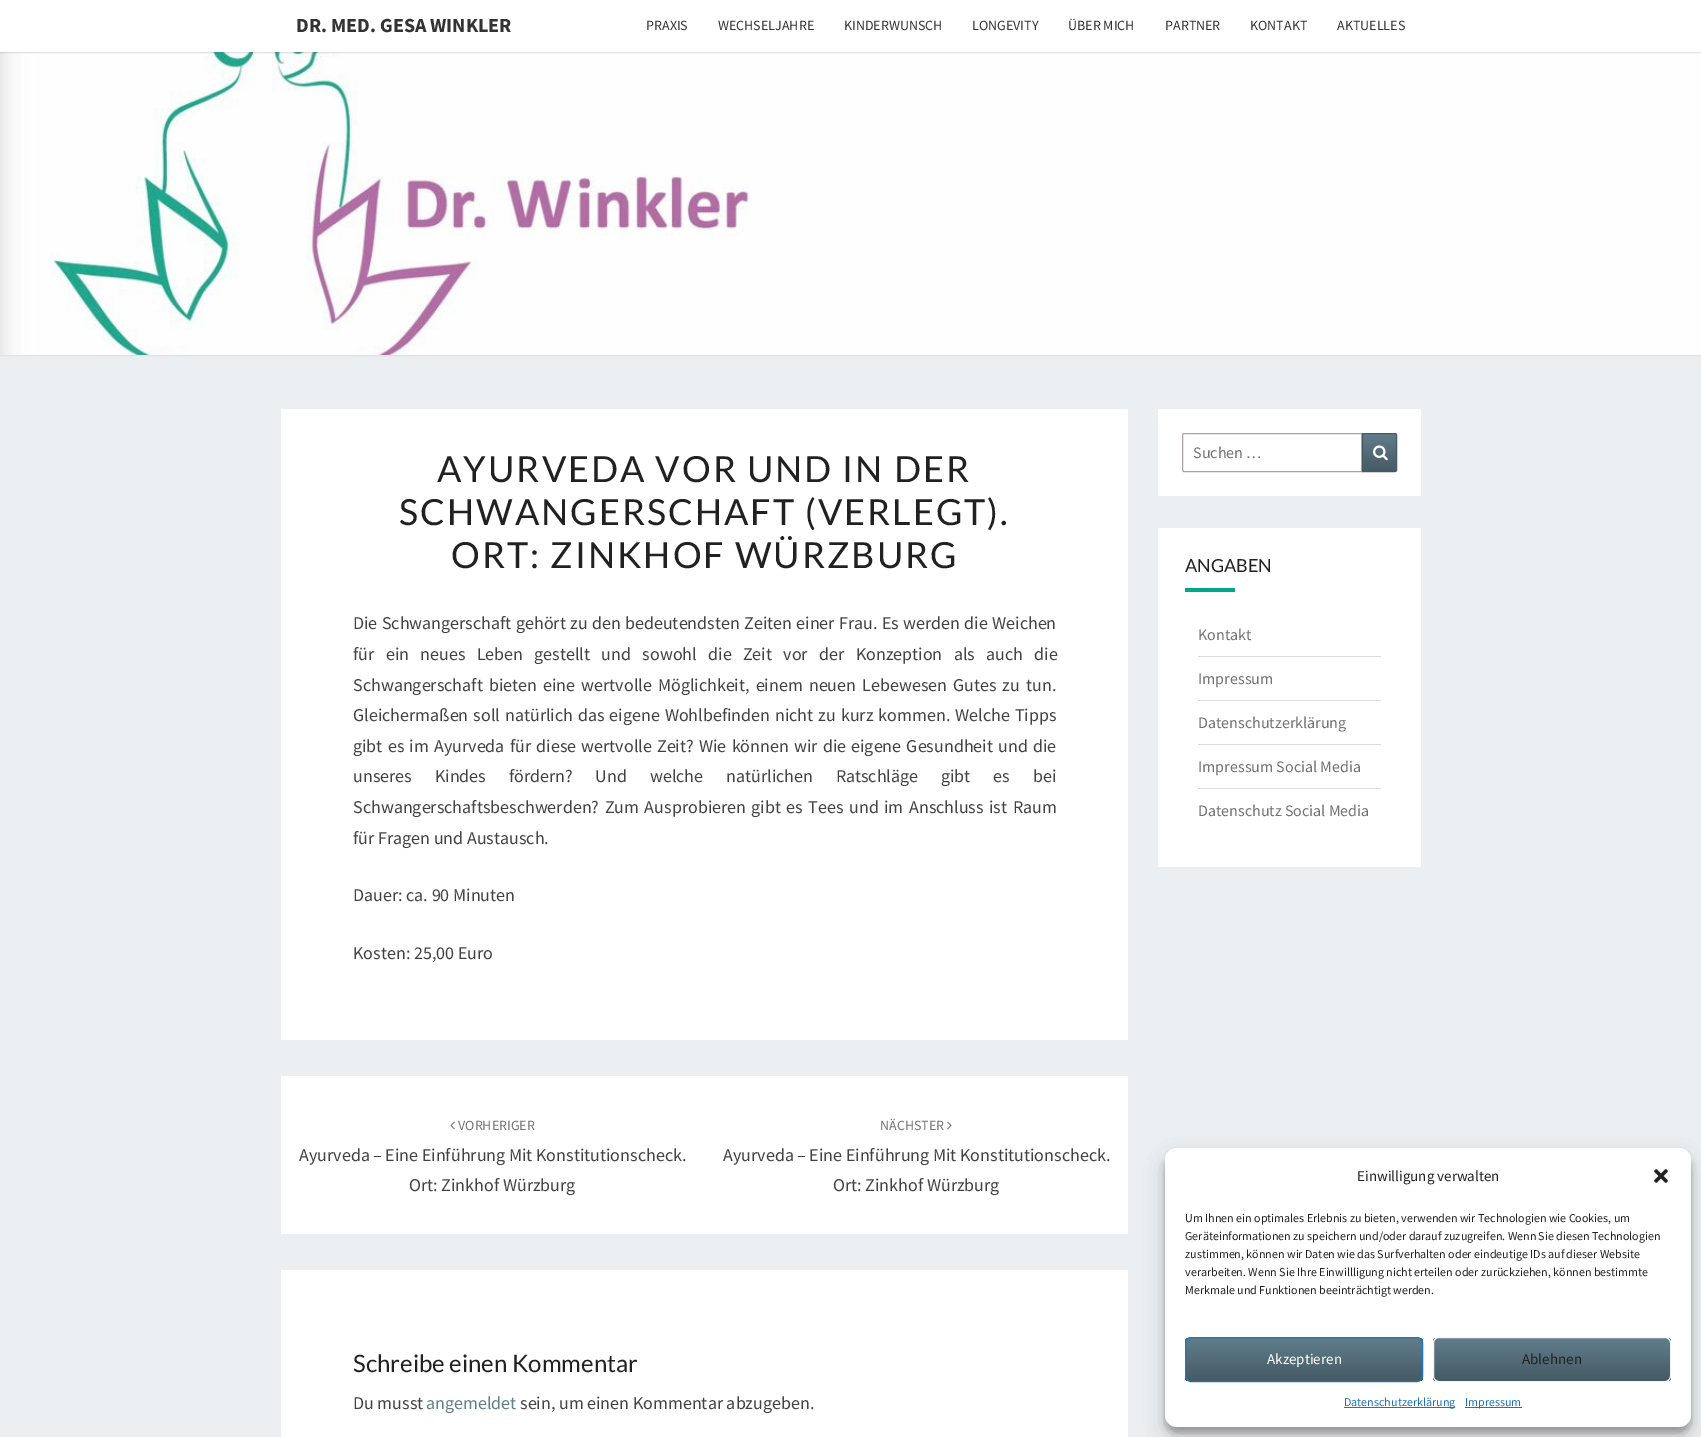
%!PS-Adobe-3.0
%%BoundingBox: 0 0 1701 1437
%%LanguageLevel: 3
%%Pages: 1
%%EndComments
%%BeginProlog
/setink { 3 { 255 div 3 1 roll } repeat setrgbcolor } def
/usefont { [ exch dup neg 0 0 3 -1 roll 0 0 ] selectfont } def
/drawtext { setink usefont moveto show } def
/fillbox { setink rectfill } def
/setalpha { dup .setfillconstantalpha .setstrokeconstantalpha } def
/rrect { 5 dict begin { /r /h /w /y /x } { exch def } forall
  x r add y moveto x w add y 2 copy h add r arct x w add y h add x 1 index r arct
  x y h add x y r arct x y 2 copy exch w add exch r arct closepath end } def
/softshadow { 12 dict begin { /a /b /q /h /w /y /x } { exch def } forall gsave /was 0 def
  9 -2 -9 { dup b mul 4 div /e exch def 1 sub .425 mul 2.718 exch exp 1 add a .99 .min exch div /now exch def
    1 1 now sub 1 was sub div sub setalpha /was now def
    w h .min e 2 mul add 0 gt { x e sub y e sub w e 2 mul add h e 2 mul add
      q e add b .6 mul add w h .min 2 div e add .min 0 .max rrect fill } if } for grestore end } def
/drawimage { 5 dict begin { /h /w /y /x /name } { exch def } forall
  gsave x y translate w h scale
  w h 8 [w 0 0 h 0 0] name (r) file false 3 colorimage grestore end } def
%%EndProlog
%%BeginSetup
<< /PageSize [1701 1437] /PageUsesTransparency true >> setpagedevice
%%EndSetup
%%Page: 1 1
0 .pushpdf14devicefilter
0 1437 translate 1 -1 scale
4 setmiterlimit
0 0 1701 1437 236 239 241 fillbox
182 182 182 setink
-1 -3 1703 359 0 1 0.3 softshadow
(assets/img1.rgb) 0 52 1701 303 drawimage
100 100 100 setink
0 1 1701 52 0 0.5 0.2 softshadow
0 0 1701 52 255 255 255 fillbox
(DR. MED. GESA WINKLER) 296 32 /SourceSansPro-Bold 20 51 51 51 drawtext
(PRAXIS) 646 30 /SourceSansPro-Regular 14 51 51 51 drawtext
(WECHSELJAHRE) 718 30 /SourceSansPro-Regular 14 51 51 51 drawtext
(KINDERWUNSCH) 844 30 /SourceSansPro-Regular 14 51 51 51 drawtext
(LONGEVITY) 972 30 /SourceSansPro-Regular 14 51 51 51 drawtext
(ÜBER MICH) 1068 30 /SourceSansPro-Regular 14 51 51 51 drawtext
(PARTNER) 1165 30 /SourceSansPro-Regular 14 51 51 51 drawtext
(KONTAKT) 1250 30 /SourceSansPro-Regular 14 51 51 51 drawtext
(AKTUELLES) 1337 30 /SourceSansPro-Regular 14 51 51 51 drawtext
281 409 847 631 255 255 255 fillbox
/Lato-Regular 36 usefont
33 33 33 setink
437 482 moveto 2 0 (AYURVEDA VOR UND IN DER) ashow
399 525 moveto 2 0 (SCHWANGERSCHAFT \(VERLEGT\).) ashow
451 568 moveto 2 0 (ORT: ZINKHOF WÜRZBURG) ashow
/SourceSansPro-Regular 18 usefont
66 66 66 setink
353 629 moveto 0.75 0 32 (Die Schwangerschaft gehört zu den bedeutendsten Zeiten einer Frau. Es werden die Weichen) widthshow
353 660 moveto 7.75 0 32 (für ein neues Leben gestellt und sowohl die Zeit vor der Konzeption als auch die) widthshow
353 691 moveto 2.5 0 32 (Schwangerschaft bieten eine wertvolle Möglichkeit, einem neuen Lebewesen Gutes zu tun.) widthshow
353 721 moveto 1.4 0 32 (Gleichermaßen soll natürlich das eigene Wohlbefinden nicht zu kurz kommen. Welche Tipps) widthshow
353 752 moveto 1.6 0 32 (gibt es im Ayurveda für diese wertvolle Zeit? Wie können wir die eigene Gesundheit und die) widthshow
353 782 moveto 19.25 0 32 (unseres Kindes fördern? Und welche natürlichen Ratschläge gibt es bei) widthshow
353 813 moveto 1.9 0 32 (Schwangerschaftsbeschwerden? Zum Ausprobieren gibt es Tees und im Anschluss ist Raum) widthshow
(für Fragen und Austausch.) 353 844 /SourceSansPro-Regular 18 66 66 66 drawtext
(Dauer: ca. 90 Minuten) 353 901 /SourceSansPro-Regular 18 66 66 66 drawtext
(Kosten: 25,00 Euro) 353 959 /SourceSansPro-Regular 18 66 66 66 drawtext
281 1076 847 158 255 255 255 fillbox
(assets/img2.rgb) 450 1121 5 9 drawimage
(VORHERIGER) 458 1130 /SourceSansPro-Regular 14 114 114 114 drawtext
(Ayurveda – Eine Einführung Mit Konstitutionscheck.) 299 1161 /SourceSansPro-Regular 18 66 66 66 drawtext
(Ort: Zinkhof Würzburg) 409 1191 /SourceSansPro-Regular 18 66 66 66 drawtext
(NÄCHSTER) 880 1130 /SourceSansPro-Regular 14 114 114 114 drawtext
(assets/img3.rgb) 947 1121 5 9 drawimage
(Ayurveda – Eine Einführung Mit Konstitutionscheck.) 723 1161 /SourceSansPro-Regular 18 66 66 66 drawtext
(Ort: Zinkhof Würzburg) 833 1191 /SourceSansPro-Regular 18 66 66 66 drawtext
281 1270 847 167 255 255 255 fillbox
(Schreibe einen Kommentar) 353 1372 /Lato-Regular 24 33 33 33 drawtext
(Du musst) 353 1409 /SourceSansPro-Regular 18 66 66 66 drawtext
(angemeldet) 426 1409 /SourceSansPro-Regular 18 96 125 139 drawtext
(sein, um einen Kommentar abzugeben.) 520 1409 /SourceSansPro-Regular 18 66 66 66 drawtext
1158 409 263 87 255 255 255 fillbox
170 161 168 setink
1184 433.5 moveto 1361.5 433.5 lineto 1361.5 471.5 lineto 1184 471.5 lineto 1183 471.5 1182.5 471 1182.5 470 curveto 1182.5 435 lineto 1182.5 434 1183 433.5 1184 433.5 curveto closepath stroke
(Suchen …) 1193 458 /SourceSansPro-Regular 16 114 114 114 drawtext
gsave 1363 434 moveto 1397 434 lineto 1397 471 lineto 1363 471 lineto closepath clip newpath
<< /ShadingType 2 /ColorSpace /DeviceRGB /Coords [1380 434 1380 471] /Extend [true true] /Function << /FunctionType 2 /Domain [0 1] /C0 [0.376 0.49 0.545] /C1 [0.271 0.353 0.392] /N 1 >> >> shfill grestore
69 90 100 setink
1362.5 433.5 moveto 1395 433.5 lineto 1396 433.5 1396.5 434 1396.5 435 curveto 1396.5 470 lineto 1396.5 471 1396 471.5 1395 471.5 curveto 1362.5 471.5 lineto closepath stroke
(assets/img4.rgb) 1373 445 15 16 drawimage
1158 528 263 339 255 255 255 fillbox
(ANGABEN) 1185 572 /Lato-Regular 18 33 33 33 drawtext
1185 588 50 4 2 165 137 fillbox
1198 656 183 1 221 221 221 fillbox
(Kontakt) 1198 640 /SourceSansPro-Regular 16 114 114 114 drawtext
1198 700 183 1 221 221 221 fillbox
(Impressum) 1198 684 /SourceSansPro-Regular 16 114 114 114 drawtext
1198 744 183 1 221 221 221 fillbox
(Datenschutzerklärung) 1198 728 /SourceSansPro-Regular 16 114 114 114 drawtext
1198 788 183 1 221 221 221 fillbox
(Impressum Social Media) 1198 772 /SourceSansPro-Regular 16 114 114 114 drawtext
(Datenschutz Social Media) 1198 816 /SourceSansPro-Regular 16 114 114 114 drawtext
0 0 0 setink
1165 1154 526 279 12 3 0.23 softshadow
1165 1158 526 279 12 10 0.19 softshadow
255 255 255 setink
1165 1148 526 279 12 rrect fill
(Einwilligung verwalten) 1357 1181 /SourceSansPro-Regular 15 33 33 33 drawtext
(assets/img5.rgb) 1654 1169 14 14 drawimage
(Um Ihnen ein optimales Erlebnis zu bieten, verwenden wir Technologien wie Cookies, um) 1185 1222 /SourceSansPro-Regular 12 33 33 33 drawtext
(Geräteinformationen zu speichern und/oder darauf zuzugreifen. Wenn Sie diesen Technologien) 1185 1240 /SourceSansPro-Regular 12 33 33 33 drawtext
(zustimmen, können wir Daten wie das Surfverhalten oder eindeutige IDs auf dieser Website) 1185 1258 /SourceSansPro-Regular 12 33 33 33 drawtext
(verarbeiten. Wenn Sie Ihre Einwillligung nicht erteilen oder zurückziehen, können bestimmte) 1185 1276 /SourceSansPro-Regular 12 33 33 33 drawtext
(Merkmale und Funktionen beeinträchtigt werden.) 1185 1294 /SourceSansPro-Regular 12 33 33 33 drawtext
gsave
1185 1337 238 45 6 rrect clip newpath
gsave 1185 1338 moveto 1423 1338 lineto 1423 1381 lineto 1185 1381 lineto closepath clip newpath
<< /ShadingType 2 /ColorSpace /DeviceRGB /Coords [1304 1338 1304 1381] /Extend [true true] /Function << /FunctionType 2 /Domain [0 1] /C0 [0.376 0.49 0.545] /C1 [0.271 0.353 0.392] /N 1 >> >> shfill grestore
grestore
30 115 190 setink
1185.5 1337.5 237 44 5.5 rrect stroke
(Akzeptieren) 1267 1364 /SourceSansPro-Regular 15 255 255 255 drawtext
gsave
1433 1337 238 45 6 rrect clip newpath
gsave 1433 1338 moveto 1671 1338 lineto 1671 1381 lineto 1433 1381 lineto closepath clip newpath
<< /ShadingType 2 /ColorSpace /DeviceRGB /Coords [1552 1338 1552 1381] /Extend [true true] /Function << /FunctionType 2 /Domain [0 1] /C0 [0.376 0.49 0.545] /C1 [0.271 0.353 0.392] /N 1 >> >> shfill grestore
grestore
242 242 242 setink
1433.5 1337.5 237 44 5.5 rrect stroke
(Ablehnen) 1522 1364 /SourceSansPro-Regular 15 33 33 33 drawtext
1344 1407 111 1 30 115 190 fillbox
(Datenschutzerklärung) 1344 1406 /SourceSansPro-Regular 12 30 115 190 drawtext
1465 1407 57 1 30 115 190 fillbox
(Impressum) 1465 1406 /SourceSansPro-Regular 12 30 115 190 drawtext
.poppdf14devicefilter showpage
%%EOF
